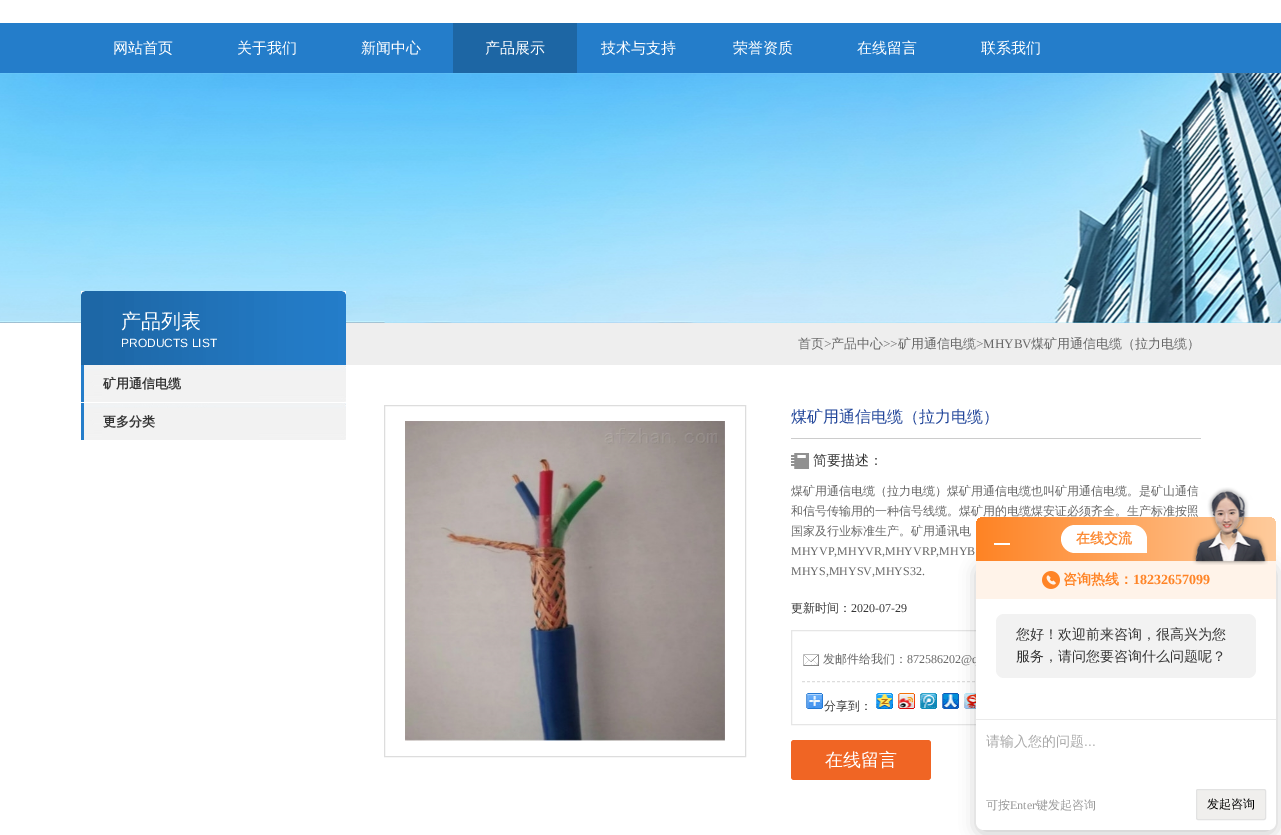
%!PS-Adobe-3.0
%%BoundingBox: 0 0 1281 835
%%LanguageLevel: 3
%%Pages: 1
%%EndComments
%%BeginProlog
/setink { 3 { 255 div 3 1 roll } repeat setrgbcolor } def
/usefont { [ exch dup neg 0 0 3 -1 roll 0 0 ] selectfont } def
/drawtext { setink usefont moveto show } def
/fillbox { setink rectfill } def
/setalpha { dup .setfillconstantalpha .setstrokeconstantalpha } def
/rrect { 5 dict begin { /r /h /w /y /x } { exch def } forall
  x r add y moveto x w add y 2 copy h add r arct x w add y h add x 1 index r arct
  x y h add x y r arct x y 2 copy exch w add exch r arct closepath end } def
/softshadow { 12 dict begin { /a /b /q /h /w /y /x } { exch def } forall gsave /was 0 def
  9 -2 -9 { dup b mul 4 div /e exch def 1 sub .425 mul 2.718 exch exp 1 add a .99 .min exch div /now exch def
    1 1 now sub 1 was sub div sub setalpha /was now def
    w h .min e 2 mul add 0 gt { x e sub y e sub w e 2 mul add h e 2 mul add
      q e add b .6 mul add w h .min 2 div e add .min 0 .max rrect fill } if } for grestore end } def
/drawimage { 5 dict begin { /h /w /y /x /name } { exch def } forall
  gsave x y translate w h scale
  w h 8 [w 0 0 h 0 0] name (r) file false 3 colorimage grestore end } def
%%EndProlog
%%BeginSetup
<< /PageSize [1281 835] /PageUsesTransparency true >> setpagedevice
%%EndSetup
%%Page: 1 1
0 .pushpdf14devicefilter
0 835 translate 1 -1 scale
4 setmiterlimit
0 0 1281 835 255 255 255 fillbox
346 323 935 42 238 238 238 fillbox
0 23 1281 50 36 125 202 fillbox
(网站首页) 113 53 /WenQuanYiZenHei-Medium 15 255 255 255 drawtext
(关于我们) 237 53 /WenQuanYiZenHei-Medium 15 255 255 255 drawtext
(新闻中心) 361 53 /WenQuanYiZenHei-Medium 15 255 255 255 drawtext
453 23 124 50 29 102 164 fillbox
(产品展示) 485 53 /WenQuanYiZenHei-Medium 15 255 255 255 drawtext
(技术与支持) 601 53 /WenQuanYiZenHei-Medium 15 255 255 255 drawtext
(荣誉资质) 733 53 /WenQuanYiZenHei-Medium 15 255 255 255 drawtext
(在线留言) 857 53 /WenQuanYiZenHei-Medium 15 255 255 255 drawtext
(联系我们) 981 53 /WenQuanYiZenHei-Medium 15 255 255 255 drawtext
(assets/img1.rgb) 0 73 1281 250 drawimage
(assets/img2.rgb) 81 291 265 74 drawimage
(产品列表) 121 328 /WenQuanYiZenHei-Medium 20 255 255 255 drawtext
(PRODUCTS LIST) 121 347 /LiberationSans-Regular 12 255 255 255 drawtext
(assets/img3.rgb) 81 365 265 37 drawimage
(矿用通信电缆) 103 388 /WenQuanYiZenHei-Bold 13 53 53 53 drawtext
(assets/img3.rgb) 81 403 265 37 drawimage
(更多分类) 103 426 /WenQuanYiZenHei-Bold 13 53 53 53 drawtext
(首页) 798 348 /WenQuanYiZenHei-Medium 13 104 104 104 drawtext
(>) 824 348 /LiberationSerif-Regular 13 104 104 104 drawtext
(产品中心) 831 348 /WenQuanYiZenHei-Medium 13 104 104 104 drawtext
(>>) 883 348 /LiberationSerif-Regular 13 104 104 104 drawtext
(矿用通信电缆) 898 348 /WenQuanYiZenHei-Medium 13 104 104 104 drawtext
(>MHYBV) 976 348 /LiberationSerif-Regular 13 104 104 104 drawtext
(煤矿用通信电缆（拉力电缆）) 1031 348 /WenQuanYiZenHei-Medium 13 104 104 104 drawtext
221 221 221 setink
384.5 405.5 361 351 rectstroke
(assets/img4.rgb) 405 421 320 320 drawimage
791 438 410 1 204 204 204 fillbox
(煤矿用通信电缆（拉力电缆）) 791 422 /WenQuanYiZenHei-Medium 16 34 70 154 drawtext
(assets/img5.rgb) 791 453 18 16 drawimage
(简要描述：) 813 465 /WenQuanYiZenHei-Medium 14 53 53 53 drawtext
(煤矿用通信电缆（拉力电缆）煤矿用通信电缆也叫矿用通信电缆。是矿山通信) 791 495 /WenQuanYiZenHei-Medium 12 104 104 104 drawtext
(和信号传输用的一种信号线缆。煤矿用的电缆煤安证必须齐全。生产标准按照) 791 515 /WenQuanYiZenHei-Medium 12 104 104 104 drawtext
(国家及行业标准生产。矿用通讯电) 791 535 /WenQuanYiZenHei-Medium 12 104 104 104 drawtext
(MHYVP,MHYVR,MHYVRP,MHYB) 791 555 /LiberationSerif-Regular 12 104 104 104 drawtext
(MHYS,MHYSV,MHYS32.) 791 575 /LiberationSerif-Regular 12 104 104 104 drawtext
(更新时间：) 791 612 /WenQuanYiZenHei-Medium 12 53 53 53 drawtext
(2020-07-29) 851 612 /LiberationSerif-Regular 12 53 53 53 drawtext
230 230 230 setink
791.5 630.5 409 94 rectstroke
(assets/img6.rgb) 803 654 16 12 drawimage
(发邮件给我们：) 823 663 /WenQuanYiZenHei-Medium 12 104 104 104 drawtext
(872586202@q) 907 663 /LiberationSerif-Regular 12 104 104 104 drawtext
221 221 221 setink
[3 2] 0 setdash
802 681.5 moveto 1190 681.5 lineto stroke
(assets/img7.rgb) 806 693 17 16 drawimage
(分享到：) 824 710 /WenQuanYiZenHei-Medium 12 53 53 53 drawtext
(assets/img8.rgb) 876 693 17 16 drawimage
(assets/img9.rgb) 898 693 17 16 drawimage
(assets/img10.rgb) 920 693 17 16 drawimage
(assets/img11.rgb) 942 693 17 16 drawimage
(assets/img12.rgb) 964 693 12 16 drawimage
240 101 36 setink
791 740 140 40 3 rrect fill
(在线留言) 825 766 /WenQuanYiZenHei-Medium 18 255 255 255 drawtext
0 0 0 setink
976 565 300 269 8 8 0.2 softshadow
gsave 984 517 moveto 1268 517 lineto 1272.5 517 1276 520.5 1276 525 curveto 1276 561 lineto 976 561 lineto 976 525 lineto 976 520.5 979.5 517 984 517 curveto closepath clip newpath
<< /ShadingType 2 /ColorSpace /DeviceRGB /Coords [976 539 1276 539] /Extend [true true] /Function << /FunctionType 2 /Domain [0 1] /C0 [1 0.514 0.141] /C1 [0.996 0.796 0.612] /N 1 >> >> shfill grestore
994 543 16 2 255 255 255 fillbox
1075 525 moveto 1133 525 lineto 1140.5 525 1147 531.5 1147 539 curveto 1147 553 lineto 1075 553 lineto 1067.5 553 1061 546.5 1061 539 curveto 1061 531.5 1067.5 525 1075 525 curveto closepath fill
(在线交流) 1076 543 /WenQuanYiZenHei-Bold 14 251 139 54 drawtext
255 255 255 setink
976 561 moveto 1276 561 lineto 1276 822 lineto 1276 826.5 1272.5 830 1268 830 curveto 984 830 lineto 979.5 830 976 826.5 976 822 curveto closepath fill
976 561 300 38 255 243 233 fillbox
(assets/img13.rgb) 1192 487 76 78 drawimage
(assets/img14.rgb) 1042 571 18 18 drawimage
(咨询热线：) 1063 584 /WenQuanYiZenHei-Bold 14 255 132 38 drawtext
(18232657099) 1133 584 /LiberationSerif-Bold 14 255 132 38 drawtext
242 242 242 setink
996 614 260 64 8 rrect fill
(您好！欢迎前来咨询，很高兴为您) 1016 639 /WenQuanYiZenHei-Medium 14 53 53 53 drawtext
(服务，请问您要咨询什么问题呢？) 1016 661 /WenQuanYiZenHei-Medium 14 53 53 53 drawtext
976 719 300 1 234 234 234 fillbox
(请输入您的问题) 986 746 /WenQuanYiZenHei-Medium 14 170 170 170 drawtext
(...) 1084 746 /LiberationSans-Regular 14 170 170 170 drawtext
(可按) 986 809 /WenQuanYiZenHei-Medium 12 153 153 153 drawtext
(Enter) 1010 809 /LiberationSerif-Regular 12 153 153 153 drawtext
(键发起咨询) 1036 809 /WenQuanYiZenHei-Medium 12 153 153 153 drawtext
240 239 237 setink
1196.5 789.5 69 30 1.5 rrect gsave fill grestore
226 226 226 setink
[] 0 setdash
stroke
(发起咨询) 1207 808 /WenQuanYiZenHei-Medium 12 0 0 0 drawtext
.poppdf14devicefilter showpage
%%EOF
